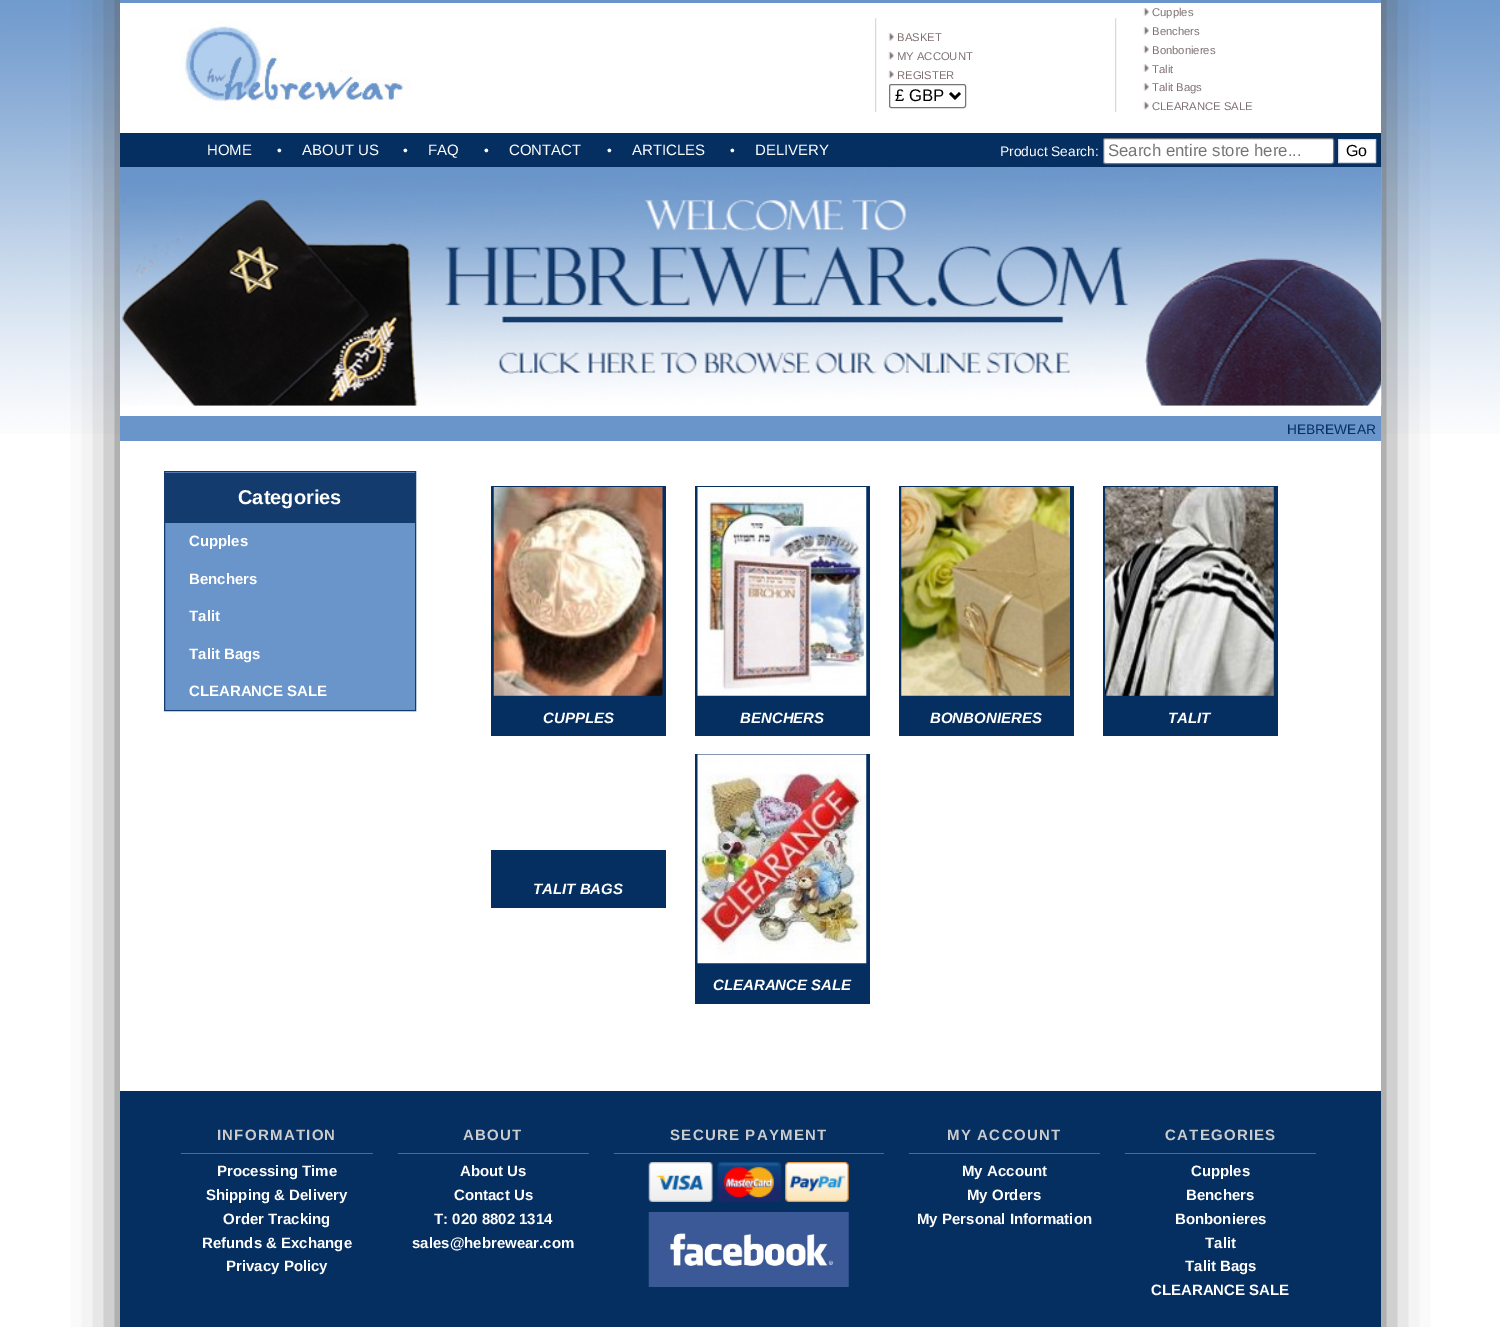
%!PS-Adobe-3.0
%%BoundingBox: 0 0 1500 1327
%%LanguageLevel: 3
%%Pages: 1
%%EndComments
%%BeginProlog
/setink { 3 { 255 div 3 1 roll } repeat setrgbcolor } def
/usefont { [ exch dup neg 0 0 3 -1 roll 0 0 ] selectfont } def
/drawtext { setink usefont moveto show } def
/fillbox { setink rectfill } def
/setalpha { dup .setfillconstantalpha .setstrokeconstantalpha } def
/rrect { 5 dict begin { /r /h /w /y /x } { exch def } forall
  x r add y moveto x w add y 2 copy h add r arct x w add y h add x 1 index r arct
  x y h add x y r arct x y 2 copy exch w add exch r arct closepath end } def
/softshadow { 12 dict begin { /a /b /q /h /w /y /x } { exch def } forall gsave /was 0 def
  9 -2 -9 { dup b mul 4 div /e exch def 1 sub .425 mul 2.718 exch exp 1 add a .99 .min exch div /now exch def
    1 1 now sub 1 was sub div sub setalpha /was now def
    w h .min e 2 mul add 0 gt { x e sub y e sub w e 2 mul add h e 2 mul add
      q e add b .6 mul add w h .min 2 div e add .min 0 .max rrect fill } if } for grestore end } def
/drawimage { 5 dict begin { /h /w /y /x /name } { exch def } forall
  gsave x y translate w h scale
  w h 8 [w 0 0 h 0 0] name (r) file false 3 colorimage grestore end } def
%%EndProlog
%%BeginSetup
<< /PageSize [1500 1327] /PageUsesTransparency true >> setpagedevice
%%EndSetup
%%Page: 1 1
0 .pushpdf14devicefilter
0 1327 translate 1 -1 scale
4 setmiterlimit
0 0 1500 1327 255 255 255 fillbox
(assets/img1.rgb) 0 0 1500 434 drawimage
94 94 94 setink
120 -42 1261 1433 0 22 1 softshadow
120 3 1261 1088 255 255 255 fillbox
120 0 1261 3 105 149 202 fillbox
(assets/img2.rgb) 180 20 230 89 drawimage
(assets/img3.rgb) 875 18 2 94 drawimage
(assets/img4.rgb) 888 33 6 8 drawimage
(BASKET) 897 41 /LiberationSans-Regular 11.25 126 112 113 drawtext
(assets/img5.rgb) 888 52 6 8 drawimage
(MY ACCOUNT) 897 60 /LiberationSans-Regular 11.25 126 112 113 drawtext
(assets/img6.rgb) 888 70 6 9 drawimage
(REGISTER) 897 79 /LiberationSans-Regular 11.25 126 112 113 drawtext
118 118 118 setink
889.5 84.5 76 23 2 rrect stroke
0 0 0 setink
2.5 setlinewidth
950 93 moveto 955 98 lineto 960 93 lineto stroke
(£ GBP) 895 101 /LiberationSans-Regular 16.75 0 0 0 drawtext
(assets/img3.rgb) 1115 18 2 94 drawimage
(assets/img4.rgb) 1143 8 6 8 drawimage
(Cupples) 1152 16 /LiberationSans-Regular 11.25 126 112 113 drawtext
(assets/img5.rgb) 1143 27 6 8 drawimage
(Benchers) 1152 35 /LiberationSans-Regular 11.25 126 112 113 drawtext
(assets/img6.rgb) 1143 45 6 9 drawimage
(Bonbonieres) 1152 54 /LiberationSans-Regular 11.25 126 112 113 drawtext
(assets/img7.rgb) 1143 64 6 8 drawimage
(Talit) 1152 73 /LiberationSans-Regular 11.25 126 112 113 drawtext
(assets/img4.rgb) 1143 83 6 8 drawimage
(Talit Bags) 1152 91 /LiberationSans-Regular 11.25 126 112 113 drawtext
(assets/img5.rgb) 1143 102 6 8 drawimage
(CLEARANCE SALE) 1152 110 /LiberationSans-Regular 11.25 126 112 113 drawtext
120 133 1261 34 6 47 97 fillbox
(HOME) 207 155 /LiberationSans-Regular 15 255 255 255 drawtext
(•) 277 155 /LiberationSans-Regular 13.75 255 255 255 drawtext
(ABOUT US) 302 155 /LiberationSans-Regular 15 255 255 255 drawtext
(•) 403 155 /LiberationSans-Regular 13.75 255 255 255 drawtext
(FAQ) 428 155 /LiberationSans-Regular 15 255 255 255 drawtext
(•) 484 155 /LiberationSans-Regular 13.75 255 255 255 drawtext
(CONTACT) 509 155 /LiberationSans-Regular 15 255 255 255 drawtext
(•) 607 155 /LiberationSans-Regular 13.75 255 255 255 drawtext
(ARTICLES) 632 155 /LiberationSans-Regular 15 255 255 255 drawtext
(•) 730 155 /LiberationSans-Regular 13.75 255 255 255 drawtext
(DELIVERY) 755 155 /LiberationSans-Regular 15 255 255 255 drawtext
(Product Search:) 1000 156 /LiberationSans-Regular 13.75 255 255 255 drawtext
1103.5 138.5 230 25 2 rrect gsave fill grestore
118 118 118 setink
1 setlinewidth
stroke
(Search entire store here...) 1108 156 /LiberationSans-Regular 16.75 117 117 117 drawtext
255 255 255 setink
1338.5 139.5 moveto 1375.5 139.5 lineto 1375.5 162.5 lineto 1338.5 162.5 lineto closepath gsave fill grestore
213 216 222 setink
stroke
(Go) 1346 156 /LiberationSans-Regular 16 0 0 0 drawtext
(assets/img8.rgb) 120 167 1262 239 drawimage
120 416 1261 25 105 149 202 fillbox
(HEBREWEAR) 1287 434 /LiberationSans-Regular 13.75 6 47 97 drawtext
105 149 202 setink
164.5 471.5 moveto 415.5 471.5 lineto 415.5 710.5 lineto 164.5 710.5 lineto closepath gsave fill grestore
19 59 110 setink
stroke
165 473 250 50 19 59 110 fillbox
(Categories) 238 504 /LiberationSans-Bold 20 255 255 255 drawtext
(Cupples) 189 546 /LiberationSans-Bold 15 255 255 255 drawtext
(Benchers) 189 584 /LiberationSans-Bold 15 255 255 255 drawtext
(Talit) 189 621 /LiberationSans-Bold 15 255 255 255 drawtext
(Talit Bags) 189 659 /LiberationSans-Bold 15 255 255 255 drawtext
(CLEARANCE SALE) 189 696 /LiberationSans-Bold 15 255 255 255 drawtext
491 486 175 250 6 47 97 fillbox
(assets/img9.rgb) 493 487 170 209 drawimage
(CUPPLES) 543 723 /LiberationSans-BoldItalic 15 255 255 255 drawtext
695 486 175 250 6 47 97 fillbox
(assets/img10.rgb) 697 487 170 209 drawimage
(BENCHERS) 740 723 /LiberationSans-BoldItalic 15 255 255 255 drawtext
899 486 175 250 6 47 97 fillbox
(assets/img11.rgb) 901 487 169 209 drawimage
(BONBONIERES) 930 723 /LiberationSans-BoldItalic 15 255 255 255 drawtext
1103 486 175 250 6 47 97 fillbox
(assets/img12.rgb) 1105 487 169 209 drawimage
(TALIT) 1168 723 /LiberationSans-BoldItalic 15 255 255 255 drawtext
491 850 175 58 6 47 97 fillbox
(TALIT BAGS) 533 894 /LiberationSans-BoldItalic 15 255 255 255 drawtext
695 754 175 250 6 47 97 fillbox
(assets/img13.rgb) 697 754 170 210 drawimage
(CLEARANCE SALE) 713 990 /LiberationSans-BoldItalic 15 255 255 255 drawtext
120 1091 1261 236 6 47 97 fillbox
181 1153 192 1 102 102 102 fillbox
/LiberationSans-Bold 15 usefont
204 204 204 setink
217 1140 moveto 1.25 0 (INFORMATION) ashow
(Processing Time) 217 1176 /LiberationSans-Bold 15 255 255 255 drawtext
(Shipping & Delivery) 206 1200 /LiberationSans-Bold 15 255 255 255 drawtext
(Order Tracking) 223 1224 /LiberationSans-Bold 15 255 255 255 drawtext
(Refunds & Exchange) 202 1248 /LiberationSans-Bold 15 255 255 255 drawtext
(Privacy Policy) 226 1271 /LiberationSans-Bold 15 255 255 255 drawtext
398 1153 191 1 102 102 102 fillbox
204 204 204 setink
463 1140 moveto 1.25 0 (ABOUT) ashow
(About Us) 460 1176 /LiberationSans-Bold 15 255 255 255 drawtext
(Contact Us) 454 1200 /LiberationSans-Bold 15 255 255 255 drawtext
(T: 020 8802 1314) 434 1224 /LiberationSans-Bold 15 255 255 255 drawtext
(sales@hebrewear.com) 412 1248 /LiberationSans-Bold 15 255 255 255 drawtext
614 1153 270 1 102 102 102 fillbox
204 204 204 setink
670 1140 moveto 1.25 0 (SECURE PAYMENT) ashow
(assets/img14.rgb) 648 1162 65 40 drawimage
(assets/img15.rgb) 717 1162 65 40 drawimage
(assets/img16.rgb) 785 1162 64 40 drawimage
(assets/img17.rgb) 648 1212 201 75 drawimage
909 1153 191 1 102 102 102 fillbox
204 204 204 setink
947 1140 moveto 1.25 0 (MY ACCOUNT) ashow
(My Account) 962 1176 /LiberationSans-Bold 15 255 255 255 drawtext
(My Orders) 967 1200 /LiberationSans-Bold 15 255 255 255 drawtext
(My Personal Information) 917 1224 /LiberationSans-Bold 15 255 255 255 drawtext
1125 1153 191 1 102 102 102 fillbox
204 204 204 setink
1165 1140 moveto 1.25 0 (CATEGORIES) ashow
(Cupples) 1191 1176 /LiberationSans-Bold 15 255 255 255 drawtext
(Benchers) 1186 1200 /LiberationSans-Bold 15 255 255 255 drawtext
(Bonbonieres) 1175 1224 /LiberationSans-Bold 15 255 255 255 drawtext
(Talit) 1205 1248 /LiberationSans-Bold 15 255 255 255 drawtext
(Talit Bags) 1185 1271 /LiberationSans-Bold 15 255 255 255 drawtext
(CLEARANCE SALE) 1151 1295 /LiberationSans-Bold 15 255 255 255 drawtext
.poppdf14devicefilter showpage
%%EOF
